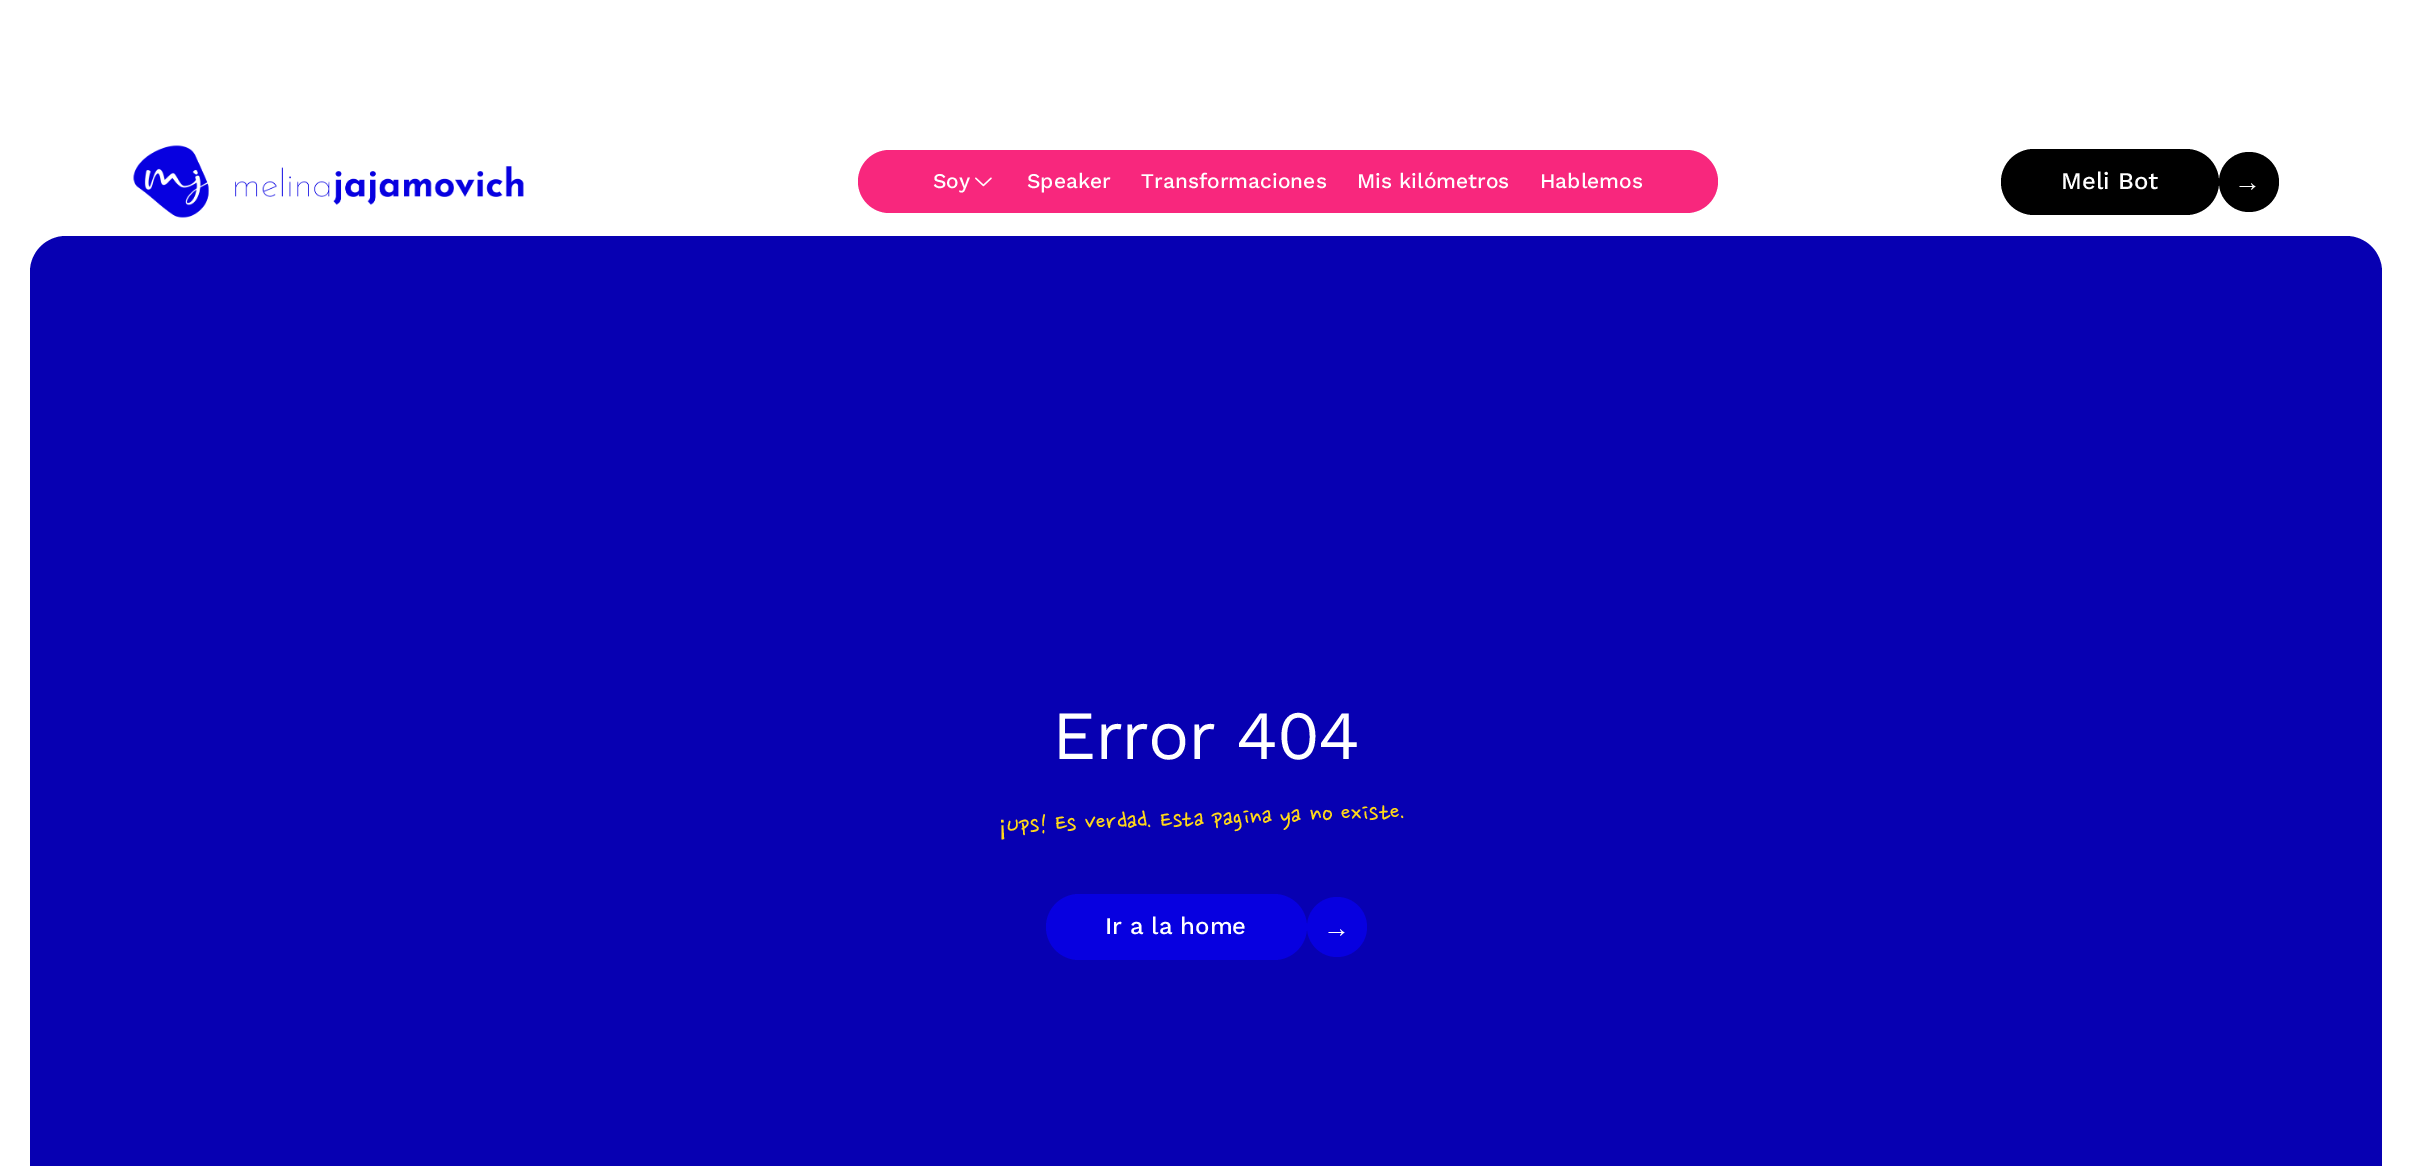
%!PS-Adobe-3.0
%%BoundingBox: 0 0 2411 1166
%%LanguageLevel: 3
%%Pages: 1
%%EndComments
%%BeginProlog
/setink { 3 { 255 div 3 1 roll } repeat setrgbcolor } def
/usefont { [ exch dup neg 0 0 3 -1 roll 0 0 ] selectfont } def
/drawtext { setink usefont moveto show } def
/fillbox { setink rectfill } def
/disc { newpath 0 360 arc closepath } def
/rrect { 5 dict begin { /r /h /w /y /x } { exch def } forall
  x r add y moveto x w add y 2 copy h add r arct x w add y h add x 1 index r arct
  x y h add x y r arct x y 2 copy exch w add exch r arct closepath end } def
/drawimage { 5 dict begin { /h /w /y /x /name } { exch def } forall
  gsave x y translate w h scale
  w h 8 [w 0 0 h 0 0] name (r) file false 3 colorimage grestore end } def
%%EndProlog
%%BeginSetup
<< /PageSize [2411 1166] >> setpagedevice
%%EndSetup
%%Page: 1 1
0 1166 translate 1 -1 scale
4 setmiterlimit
0 0 2411 1166 255 255 255 fillbox
(assets/img1.rgb) 133 145 391 73 drawimage
248 39 125 setink
858 150 860 63 31.5 rrect fill
(Soy) 933 188 /WorkSans-Medium 21 255 255 255 drawtext
(assets/img2.rgb) 975 177 17 10 drawimage
(Speaker) 1027 188 /WorkSans-Medium 21 255 255 255 drawtext
(Transformaciones) 1141 188 /WorkSans-Medium 21 255 255 255 drawtext
(Mis kilómetros) 1357 188 /WorkSans-Medium 21 255 255 255 drawtext
(Hablemos) 1540 188 /WorkSans-Medium 21 255 255 255 drawtext
0 0 0 setink
2001 149 218 66 33 rrect fill
(Meli Bot) 2061 189 /WorkSans-Medium 24 255 255 255 drawtext
0 0 0 setink
2249 182 30 disc fill
(→) 2234 191 /LiberationSans-Regular 27 255 255 255 drawtext
7 0 178 setink
30 236 2352 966 36 rrect fill
/WorkSans-Regular 69 usefont
255 255 255 setink
1052 759 moveto -1.5 0 (Error 404) ashow
/LiberationSans-Regular 28.5 usefont
255 216 25 setink
gsave 998 835 translate -2 rotate 0 0 moveto (¡) show grestore
/NanumPen-Regular 28.5 usefont
gsave 1007 835 translate -2 rotate 0 0 moveto (Ups! Es verdad. Esta pagina ya no existe.) show grestore
7 0 224 setink
1046 894 261 66 33 rrect fill
(Ir a la home) 1105 934 /WorkSans-Medium 24 255 255 255 drawtext
7 0 224 setink
1337 927 30 disc fill
(→) 1323 937 /LiberationSans-Regular 27 255 255 255 drawtext
showpage
%%EOF
